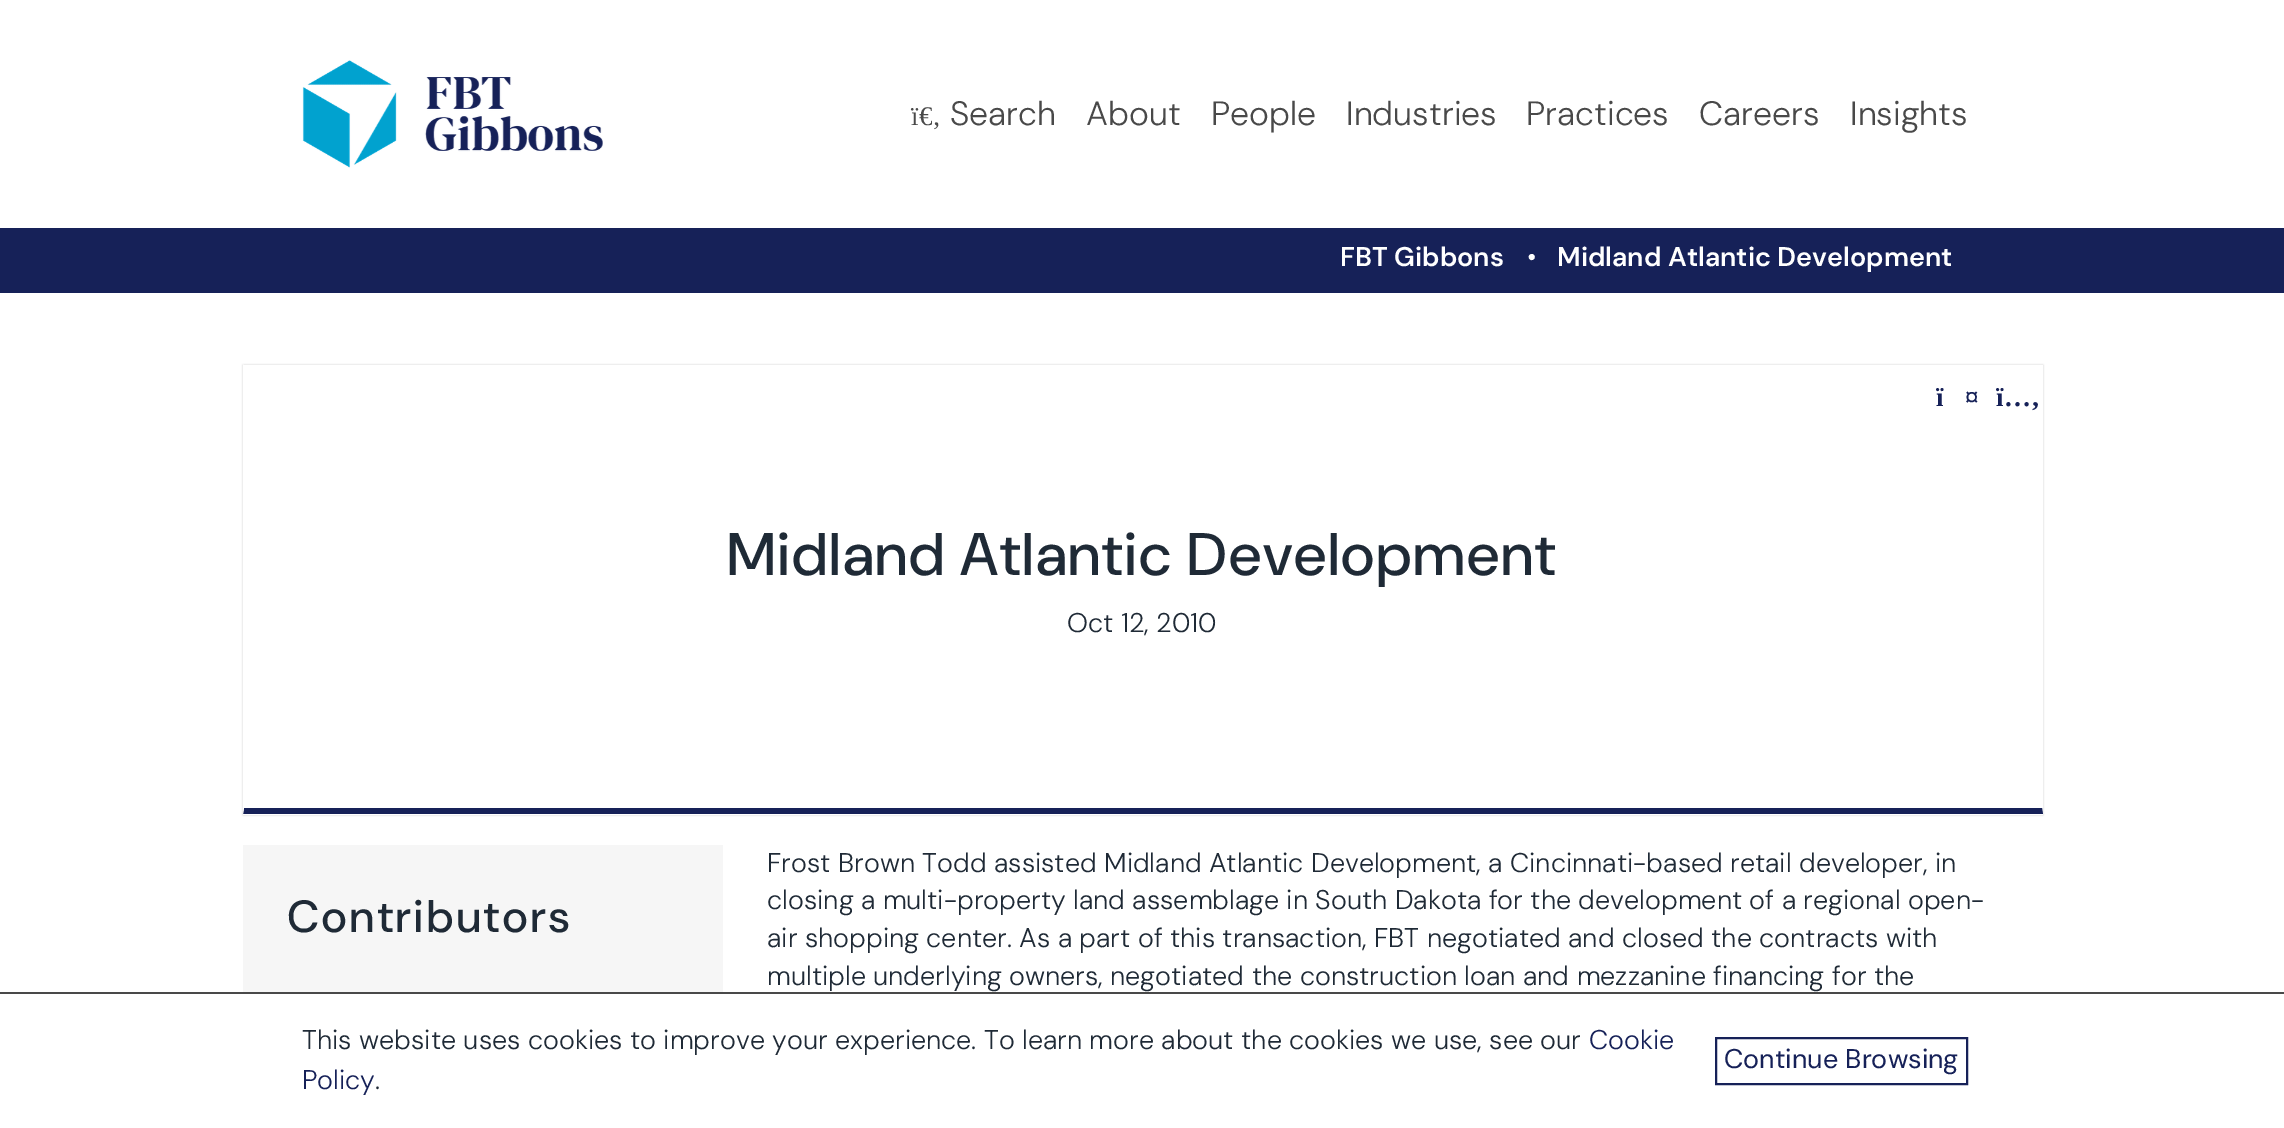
%!PS-Adobe-3.0
%%BoundingBox: 0 0 2284 1128
%%LanguageLevel: 3
%%Pages: 1
%%EndComments
%%BeginProlog
/setink { 3 { 255 div 3 1 roll } repeat setrgbcolor } def
/usefont { [ exch dup neg 0 0 3 -1 roll 0 0 ] selectfont } def
/drawtext { setink usefont moveto show } def
/fillbox { setink rectfill } def
/setalpha { dup .setfillconstantalpha .setstrokeconstantalpha } def
/rrect { 5 dict begin { /r /h /w /y /x } { exch def } forall
  x r add y moveto x w add y 2 copy h add r arct x w add y h add x 1 index r arct
  x y h add x y r arct x y 2 copy exch w add exch r arct closepath end } def
/softshadow { 12 dict begin { /a /b /q /h /w /y /x } { exch def } forall gsave /was 0 def
  9 -2 -9 { dup b mul 4 div /e exch def 1 sub .425 mul 2.718 exch exp 1 add a .99 .min exch div /now exch def
    1 1 now sub 1 was sub div sub setalpha /was now def
    w h .min e 2 mul add 0 gt { x e sub y e sub w e 2 mul add h e 2 mul add
      q e add b .6 mul add w h .min 2 div e add .min 0 .max rrect fill } if } for grestore end } def
/drawimage { 5 dict begin { /h /w /y /x /name } { exch def } forall
  gsave x y translate w h scale
  w h 8 [w 0 0 h 0 0] name (r) file false 3 colorimage grestore end } def
%%EndProlog
%%BeginSetup
<< /PageSize [2284 1128] /PageUsesTransparency true >> setpagedevice
%%EndSetup
%%Page: 1 1
0 .pushpdf14devicefilter
0 1128 translate 1 -1 scale
4 setmiterlimit
0 0 2284 1128 255 255 255 fillbox
(assets/img1.rgb) 302 60 301 108 drawimage
(ï€‚) 911 125 /LiberationSerif-Regular 27 73 73 73 drawtext
(Search) 950 125 /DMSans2-Light 33.75 73 73 73 drawtext
(About) 1086 125 /DMSans2-Light 33.75 73 73 73 drawtext
(People) 1211 125 /DMSans2-Light 33.75 73 73 73 drawtext
(Industries) 1346 125 /DMSans2-Light 33.75 73 73 73 drawtext
(Practices) 1526 125 /DMSans2-Light 33.75 73 73 73 drawtext
(Careers) 1699 125 /DMSans2-Light 33.75 73 73 73 drawtext
(Insights) 1850 125 /DMSans2-Light 33.75 73 73 73 drawtext
0 228 2284 65 22 33 88 fillbox
(FBT Gibbons) 1340 266 /DMSans-SemiBold 27 255 255 255 drawtext
(•) 1527 266 /DMSans-Light 27 255 255 255 drawtext
(Midland Atlantic Development) 1557 266 /DMSans-SemiBold 27 255 255 255 drawtext
gsave
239 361 moveto 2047 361 lineto 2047 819 lineto 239 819 lineto closepath 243 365 moveto 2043 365 lineto 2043 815 lineto 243 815 lineto closepath eoclip newpath
153 153 153 setink
243 365 1800 450 0 1 0.5 softshadow
grestore
22 33 88 setink
2043 814 moveto 243 814 lineto 244 808 lineto 2042 808 lineto closepath fill
255 255 255 setink
243 814 moveto 243 364 lineto 244 366 lineto 244 808 lineto closepath fill
(ï) 1936 406 /LiberationSerif-Bold 27 22 33 88 drawtext
(¤) 1965 406 /LiberationSerif-Bold 27 22 33 88 drawtext
(ï…‚) 1996 406 /LiberationSerif-Bold 27 22 33 88 drawtext
/DMSans2-Medium 60 usefont
31 42 54 setink
727 575 moveto 1.9 0 (Midland Atlantic Development) ashow
(Oct 12, 2010) 1067 632 /DMSans-Light 27 31 42 54 drawtext
243 845 480 147 246 246 246 fillbox
/DMSans-Medium 45 usefont
31 42 54 setink
287 932 moveto 1.9 0 (Contributors) ashow
(Frost Brown Todd assisted Midland Atlantic Development, a Cincinnati-based retail developer, in) 767 872 /DMSans-Light 27 31 42 54 drawtext
(closing a multi-property land assemblage in South Dakota for the development of a regional open-) 767 909 /DMSans-Light 27 31 42 54 drawtext
(air shopping center. As a part of this transaction, FBT negotiated and closed the contracts with) 767 947 /DMSans-Light 27 31 42 54 drawtext
(multiple underlying owners, negotiated the construction loan and mezzanine financing for the) 767 985 /DMSans-Light 27 31 42 54 drawtext
0 992 2284 2 73 73 73 fillbox
(This website uses cookies to improve your experience. To learn more about the cookies we use, see our) 302 1049 /DMSans-Light 27 31 42 54 drawtext
(Cookie) 1589 1049 /DMSans-Light 27 22 33 88 drawtext
(Policy) 302 1089 /DMSans-Light 27 22 33 88 drawtext
(.) 375 1089 /DMSans-Light 27 31 42 54 drawtext
22 33 88 setink
2 setlinewidth
1716 1038 251 46 rectstroke
(Continue Browsing) 1724 1068 /DMSans-Regular 27 22 33 88 drawtext
.poppdf14devicefilter showpage
%%EOF
